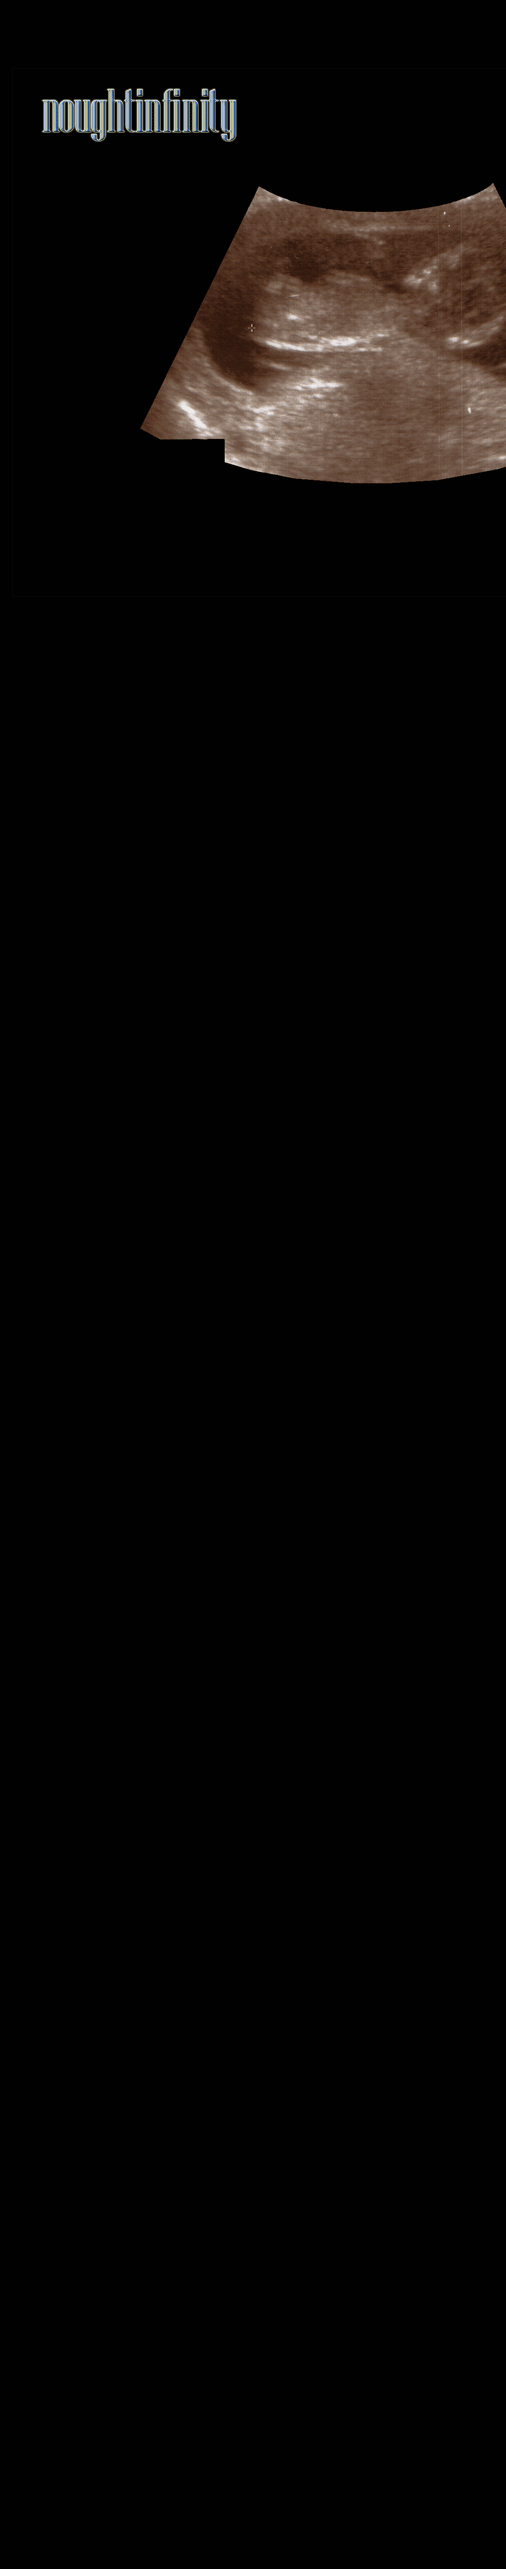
%!PS-Adobe-3.0
%%BoundingBox: 0 0 506 2569
%%LanguageLevel: 3
%%Pages: 1
%%EndComments
%%BeginProlog
/setink { 3 { 255 div 3 1 roll } repeat setrgbcolor } def
/fillbox { setink rectfill } def
/drawimage { 5 dict begin { /h /w /y /x /name } { exch def } forall
  gsave x y translate w h scale
  w h 8 [w 0 0 h 0 0] name (r) file false 3 colorimage grestore end } def
%%EndProlog
%%BeginSetup
<< /PageSize [506 2569] >> setpagedevice
%%EndSetup
%%Page: 1 1
0 2569 translate 1 -1 scale
4 setmiterlimit
0 0 506 2569 1 1 1 fillbox
(assets/img1.rgb) 12 68 494 529 drawimage
showpage
%%EOF
